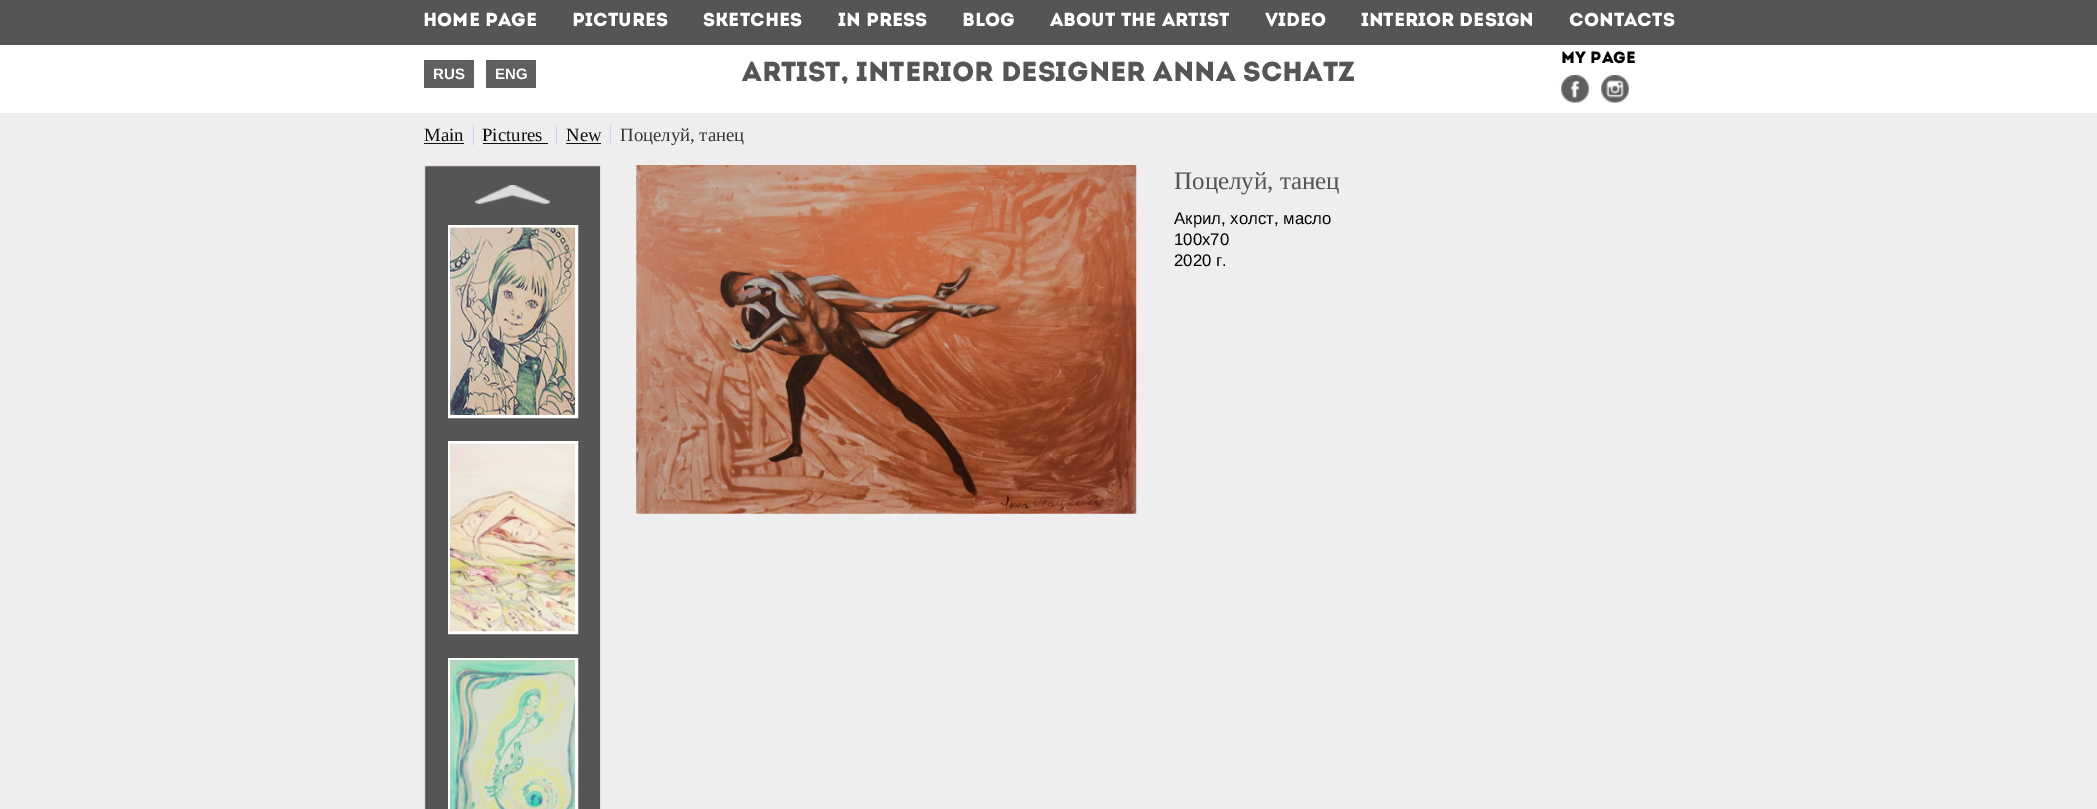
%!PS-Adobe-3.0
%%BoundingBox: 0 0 2097 809
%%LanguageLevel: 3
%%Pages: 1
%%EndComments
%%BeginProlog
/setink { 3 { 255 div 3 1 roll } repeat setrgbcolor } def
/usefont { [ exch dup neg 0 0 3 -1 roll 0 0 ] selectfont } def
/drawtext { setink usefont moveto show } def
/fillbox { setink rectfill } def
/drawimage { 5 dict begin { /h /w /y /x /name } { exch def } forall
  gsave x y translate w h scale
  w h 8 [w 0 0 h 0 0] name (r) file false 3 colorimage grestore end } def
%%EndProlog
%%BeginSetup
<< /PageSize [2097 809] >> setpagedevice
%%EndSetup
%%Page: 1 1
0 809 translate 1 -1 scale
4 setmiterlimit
0 0 2097 809 238 238 238 fillbox
0 0 2097 45 85 85 85 fillbox
(Home page) 423 26 /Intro-Regular 18.75 255 255 255 drawtext
(Pictures) 572 26 /Intro-Regular 18.75 255 255 255 drawtext
(Sketches) 703 26 /Intro-Regular 18.75 255 255 255 drawtext
(In press) 838 26 /Intro-Regular 18.75 255 255 255 drawtext
(Blog) 962 26 /Intro-Regular 18.75 255 255 255 drawtext
(Аbout the artist) 1050 26 /Intro-Regular 18.75 255 255 255 drawtext
(Video) 1265 26 /Intro-Regular 18.75 255 255 255 drawtext
(Interior design) 1361 26 /Intro-Regular 18.75 255 255 255 drawtext
(Contacts) 1569 26 /Intro-Regular 18.75 255 255 255 drawtext
0 45 2097 68 255 255 255 fillbox
(My page) 1561 63 /Intro-Regular 16.25 0 0 0 drawtext
424 60 50 28 96 94 95 fillbox
(RUS) 433 79 /LiberationSans-Bold 15 255 255 255 drawtext
486 60 50 28 96 94 95 fillbox
(ENG) 495 79 /LiberationSans-Bold 15 255 255 255 drawtext
(Artist, interior designer Anna Schatz) 742 81 /Intro-Regular 27.5 85 85 85 drawtext
(assets/img1.rgb) 1561 75 28 28 drawimage
(assets/img2.rgb) 1601 75 28 28 drawimage
(Main) 424 141 /LiberationSerif-Regular 18.75 17 17 17 drawtext
473 125 1 20 205 205 255 fillbox
424 143 40 1 17 17 17 fillbox
(Pictures) 482 141 /LiberationSerif-Regular 18.75 17 17 17 drawtext
556 125 1 20 205 205 255 fillbox
483 143 65 1 17 17 17 fillbox
(New) 566 141 /LiberationSerif-Regular 18.75 17 17 17 drawtext
610 125 1 20 205 205 255 fillbox
566 143 35 1 17 17 17 fillbox
(Поцелуй, танец) 620 141 /LiberationSerif-Regular 18.75 55 55 55 drawtext
85 85 85 setink
424.5 165.5 moveto 600.5 165.5 lineto 600.5 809.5 lineto 424.5 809.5 lineto closepath gsave fill grestore
235 219 219 setink
stroke
(assets/img3.rgb) 475 185 75 19 drawimage
255 255 255 setink
3 setlinewidth
449.5 226.5 127 190 rectstroke
(assets/img4.rgb) 450 227 125 188 drawimage
449.5 442.5 127 190 rectstroke
(assets/img5.rgb) 450 443 125 189 drawimage
449.5 659.5 127 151 rectstroke
(assets/img6.rgb) 450 660 125 149 drawimage
(assets/img7.rgb) 636 165 501 349 drawimage
(Поцелуй, танец) 1174 189 /LiberationSerif-Regular 25 85 85 85 drawtext
(Акрил, холст, масло) 1174 224 /LiberationSans-Regular 16.75 0 0 0 drawtext
(100х70) 1174 245 /LiberationSans-Regular 16.75 0 0 0 drawtext
(2020 г.) 1174 266 /LiberationSans-Regular 16.75 0 0 0 drawtext
showpage
%%EOF
